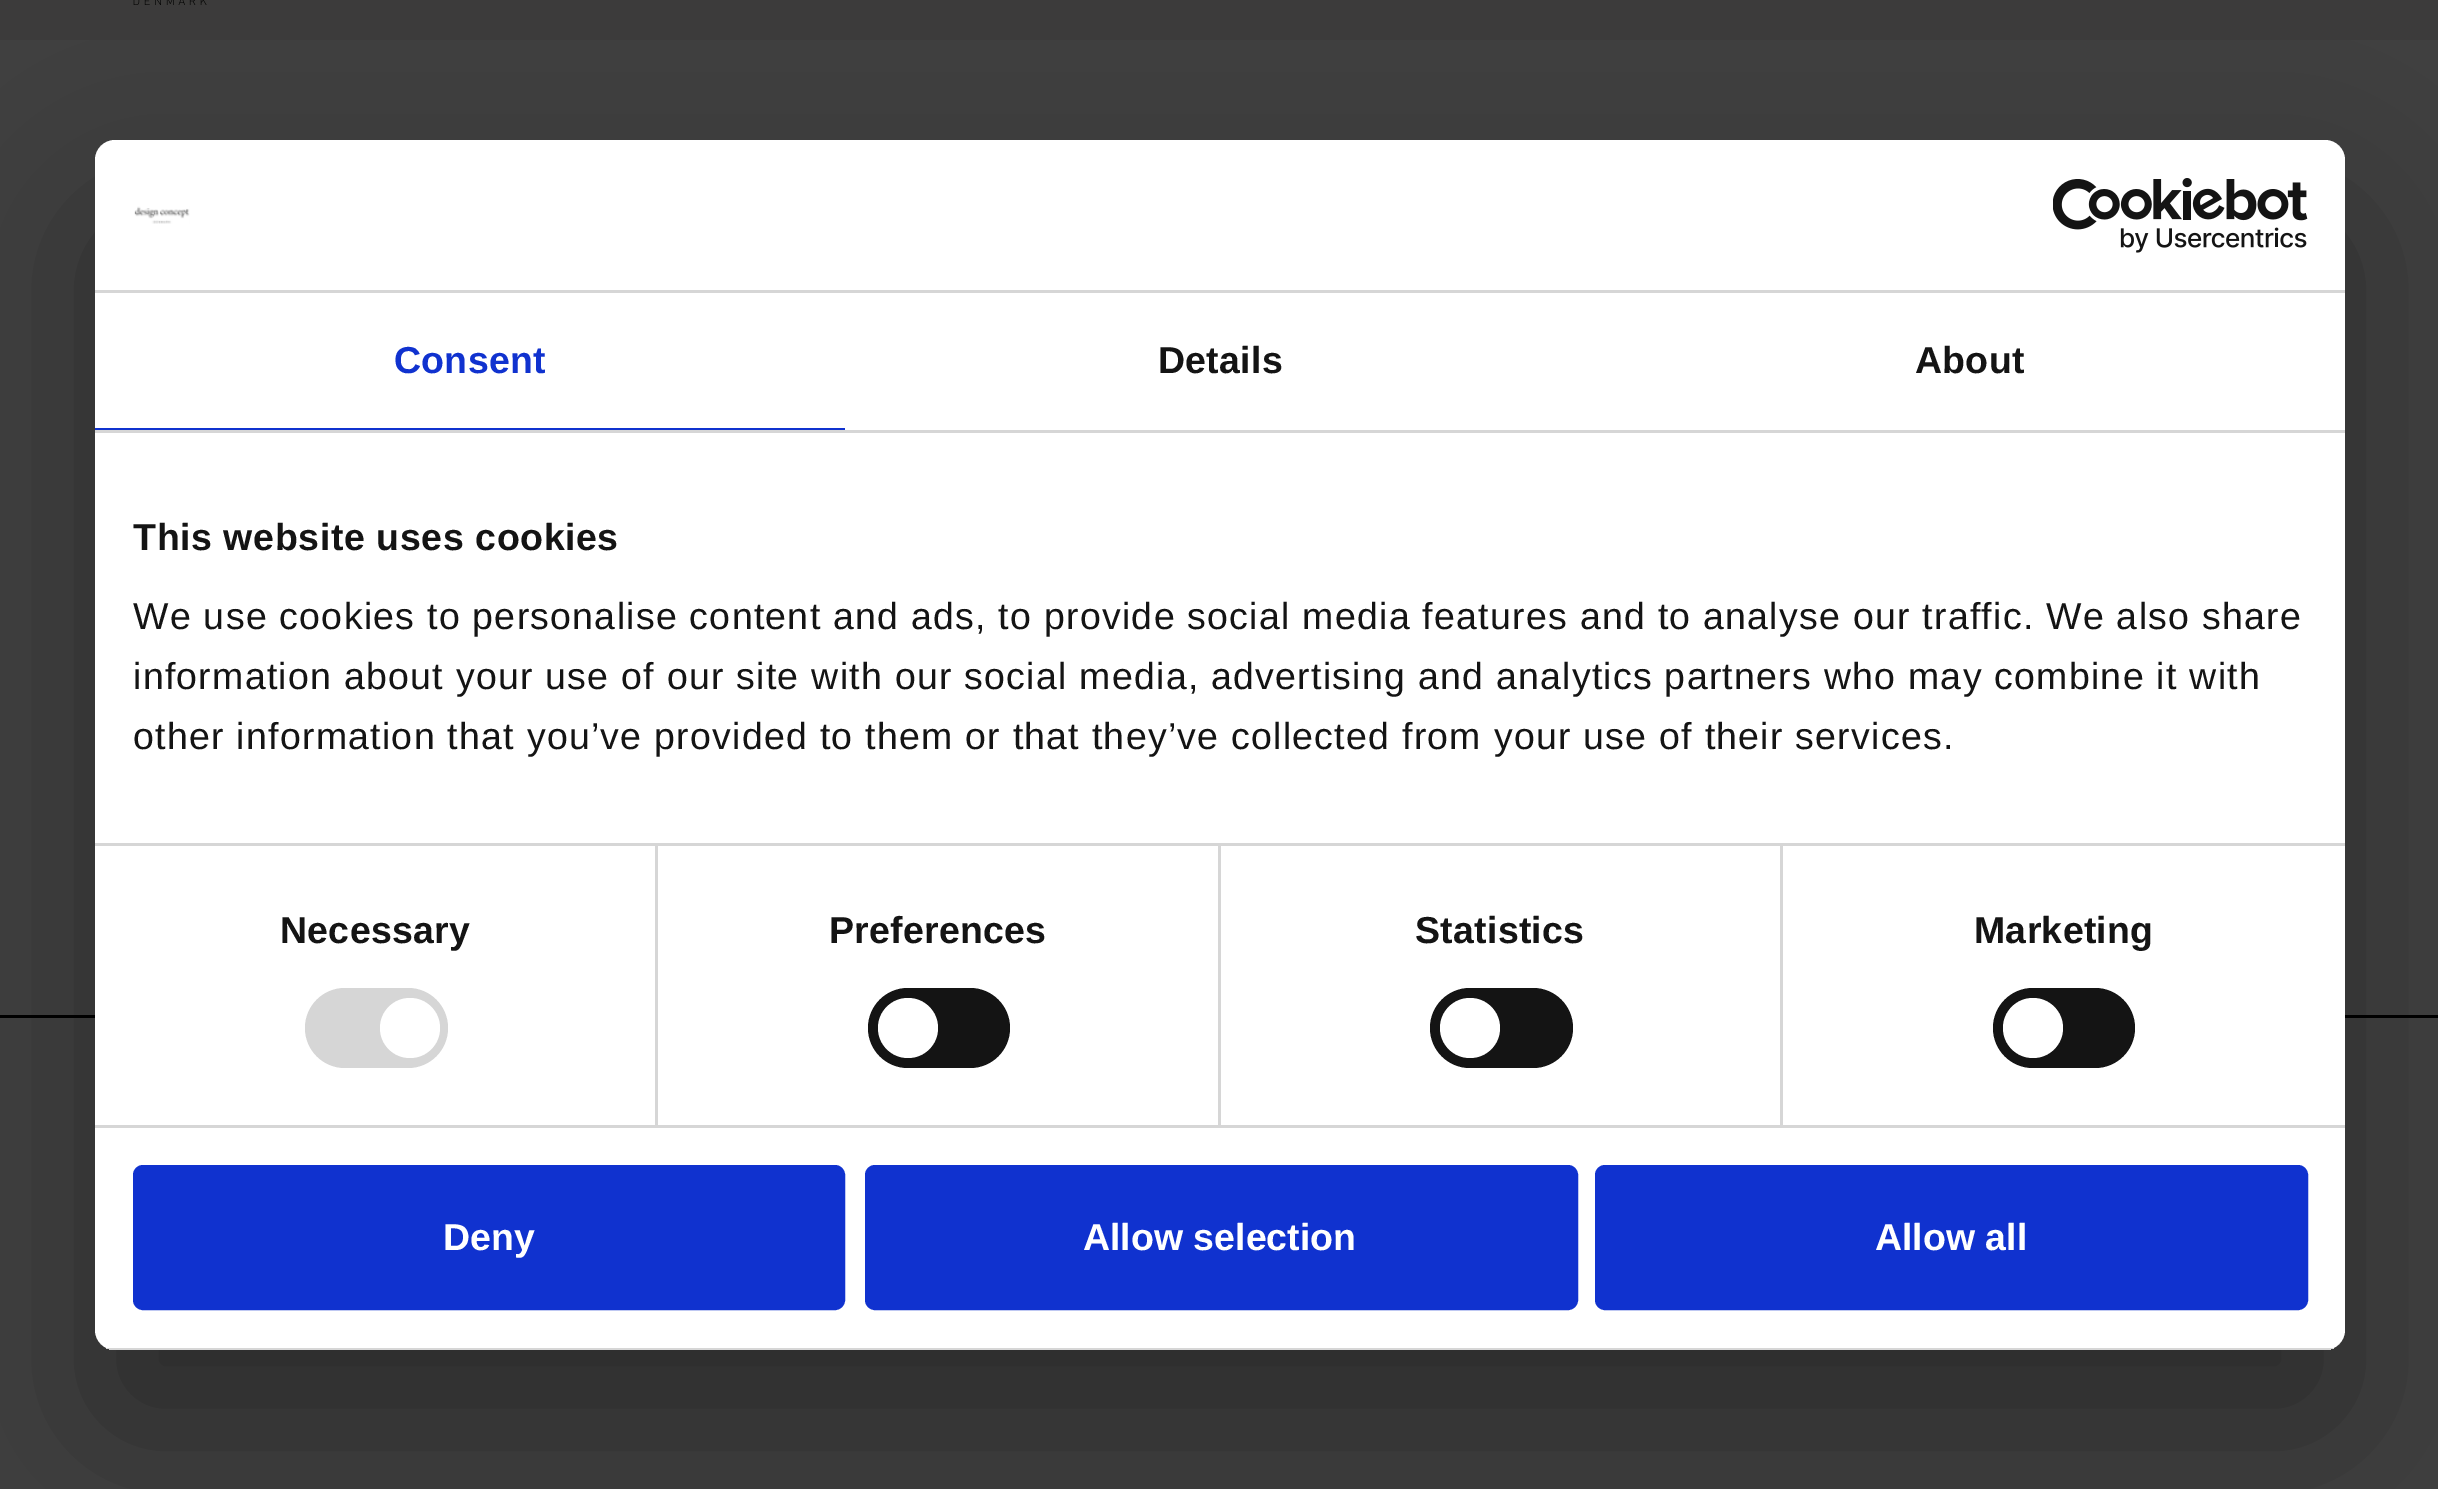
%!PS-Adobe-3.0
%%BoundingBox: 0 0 2438 1489
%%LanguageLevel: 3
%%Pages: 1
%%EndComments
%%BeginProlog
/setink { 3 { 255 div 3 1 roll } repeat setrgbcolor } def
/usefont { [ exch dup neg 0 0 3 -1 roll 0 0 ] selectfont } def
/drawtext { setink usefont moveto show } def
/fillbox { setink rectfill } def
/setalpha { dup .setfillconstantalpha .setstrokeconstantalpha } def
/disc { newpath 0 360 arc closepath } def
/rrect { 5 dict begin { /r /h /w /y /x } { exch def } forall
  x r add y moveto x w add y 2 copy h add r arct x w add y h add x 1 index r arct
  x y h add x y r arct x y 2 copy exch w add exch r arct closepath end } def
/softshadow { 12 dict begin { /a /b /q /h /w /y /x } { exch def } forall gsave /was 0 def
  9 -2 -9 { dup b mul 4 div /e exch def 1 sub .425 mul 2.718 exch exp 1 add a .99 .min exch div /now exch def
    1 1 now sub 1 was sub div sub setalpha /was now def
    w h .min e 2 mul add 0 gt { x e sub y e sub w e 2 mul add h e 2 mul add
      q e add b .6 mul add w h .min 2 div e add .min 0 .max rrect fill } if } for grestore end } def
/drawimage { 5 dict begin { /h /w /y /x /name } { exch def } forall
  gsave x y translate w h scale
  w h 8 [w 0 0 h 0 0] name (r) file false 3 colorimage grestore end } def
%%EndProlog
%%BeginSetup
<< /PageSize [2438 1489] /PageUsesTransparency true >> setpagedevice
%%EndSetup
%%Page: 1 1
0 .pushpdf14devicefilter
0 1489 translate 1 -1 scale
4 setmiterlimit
0 0 2438 1489 64 64 64 fillbox
0 0 2438 40 60 59 59 fillbox
(assets/img1.rgb) 133 0 74 5 drawimage
0 1015 2438 3 0 0 0 fillbox
95 220 2250 1210 20 85 0.3 softshadow
255 255 255 setink
95 140 2250 1210 20 rrect fill
95 290 2250 3 214 214 214 fillbox
(assets/img2.rgb) 134 206 56 18 drawimage
(assets/img3.rgb) 2053 178 255 75 drawimage
95 430 2250 3 214 214 214 fillbox
95 428 750 2 16 50 207 fillbox
/LiberationSans-Bold 37.5 usefont
394 373 moveto 0.25 0 (Consent) ashow
20 20 20 setink
1158 373 moveto 0.25 0 (Details) ashow
1915 373 moveto 0.25 0 (About) ashow
655 845 3 280 214 214 214 fillbox
1218 845 3 280 214 214 214 fillbox
1780 845 3 280 214 214 214 fillbox
95 843 2250 3 214 214 214 fillbox
20 20 20 setink
133 550 moveto 0.6 0 (This website uses cookies) ashow
/LiberationSans-Regular 37.5 usefont
133 629 moveto 1.25 0 (We use cookies to personalise content and ads, to provide social media features and to analyse our traffic. We also share) ashow
133 689 moveto 1.25 0 (information about your use of our site with our social media, advertising and analytics partners who may combine it with) ashow
133 749 moveto 1.25 0 (other information that you’ve provided to them or that they’ve collected from your use of their services.) ashow
95 1125 2250 3 214 214 214 fillbox
/LiberationSans-Bold 37.5 usefont
20 20 20 setink
280 943 moveto 0.25 0 (Necessary) ashow
214 214 214 setink
305 988 143 80 40 rrect fill
255 255 255 setink
410 1028 30 disc fill
20 20 20 setink
829 943 moveto 0.25 0 (Preferences) ashow
868 988 142 80 40 rrect fill
255 255 255 setink
908 1028 30 disc fill
20 20 20 setink
1415 943 moveto 0.25 0 (Statistics) ashow
1430 988 143 80 40 rrect fill
255 255 255 setink
1470 1028 30 disc fill
20 20 20 setink
1974 943 moveto 0.25 0 (Marketing) ashow
1993 988 142 80 40 rrect fill
255 255 255 setink
2033 1028 30 disc fill
gsave
95 140 2250 1210 20 rrect clip newpath
106 1348 2228 2 214 214 214 fillbox
grestore
16 50 207 setink
135.5 1167.5 707 140 7.5 rrect gsave fill grestore
5 setlinewidth
stroke
(Deny) 443 1250 /LiberationSans-Bold 37.5 255 255 255 drawtext
16 50 207 setink
867.5 1167.5 708 140 7.5 rrect gsave fill grestore
stroke
(Allow selection) 1083 1250 /LiberationSans-Bold 37.5 255 255 255 drawtext
16 50 207 setink
1597.5 1167.5 708 140 7.5 rrect gsave fill grestore
stroke
(Allow all) 1875 1250 /LiberationSans-Bold 37.5 255 255 255 drawtext
.poppdf14devicefilter showpage
%%EOF
